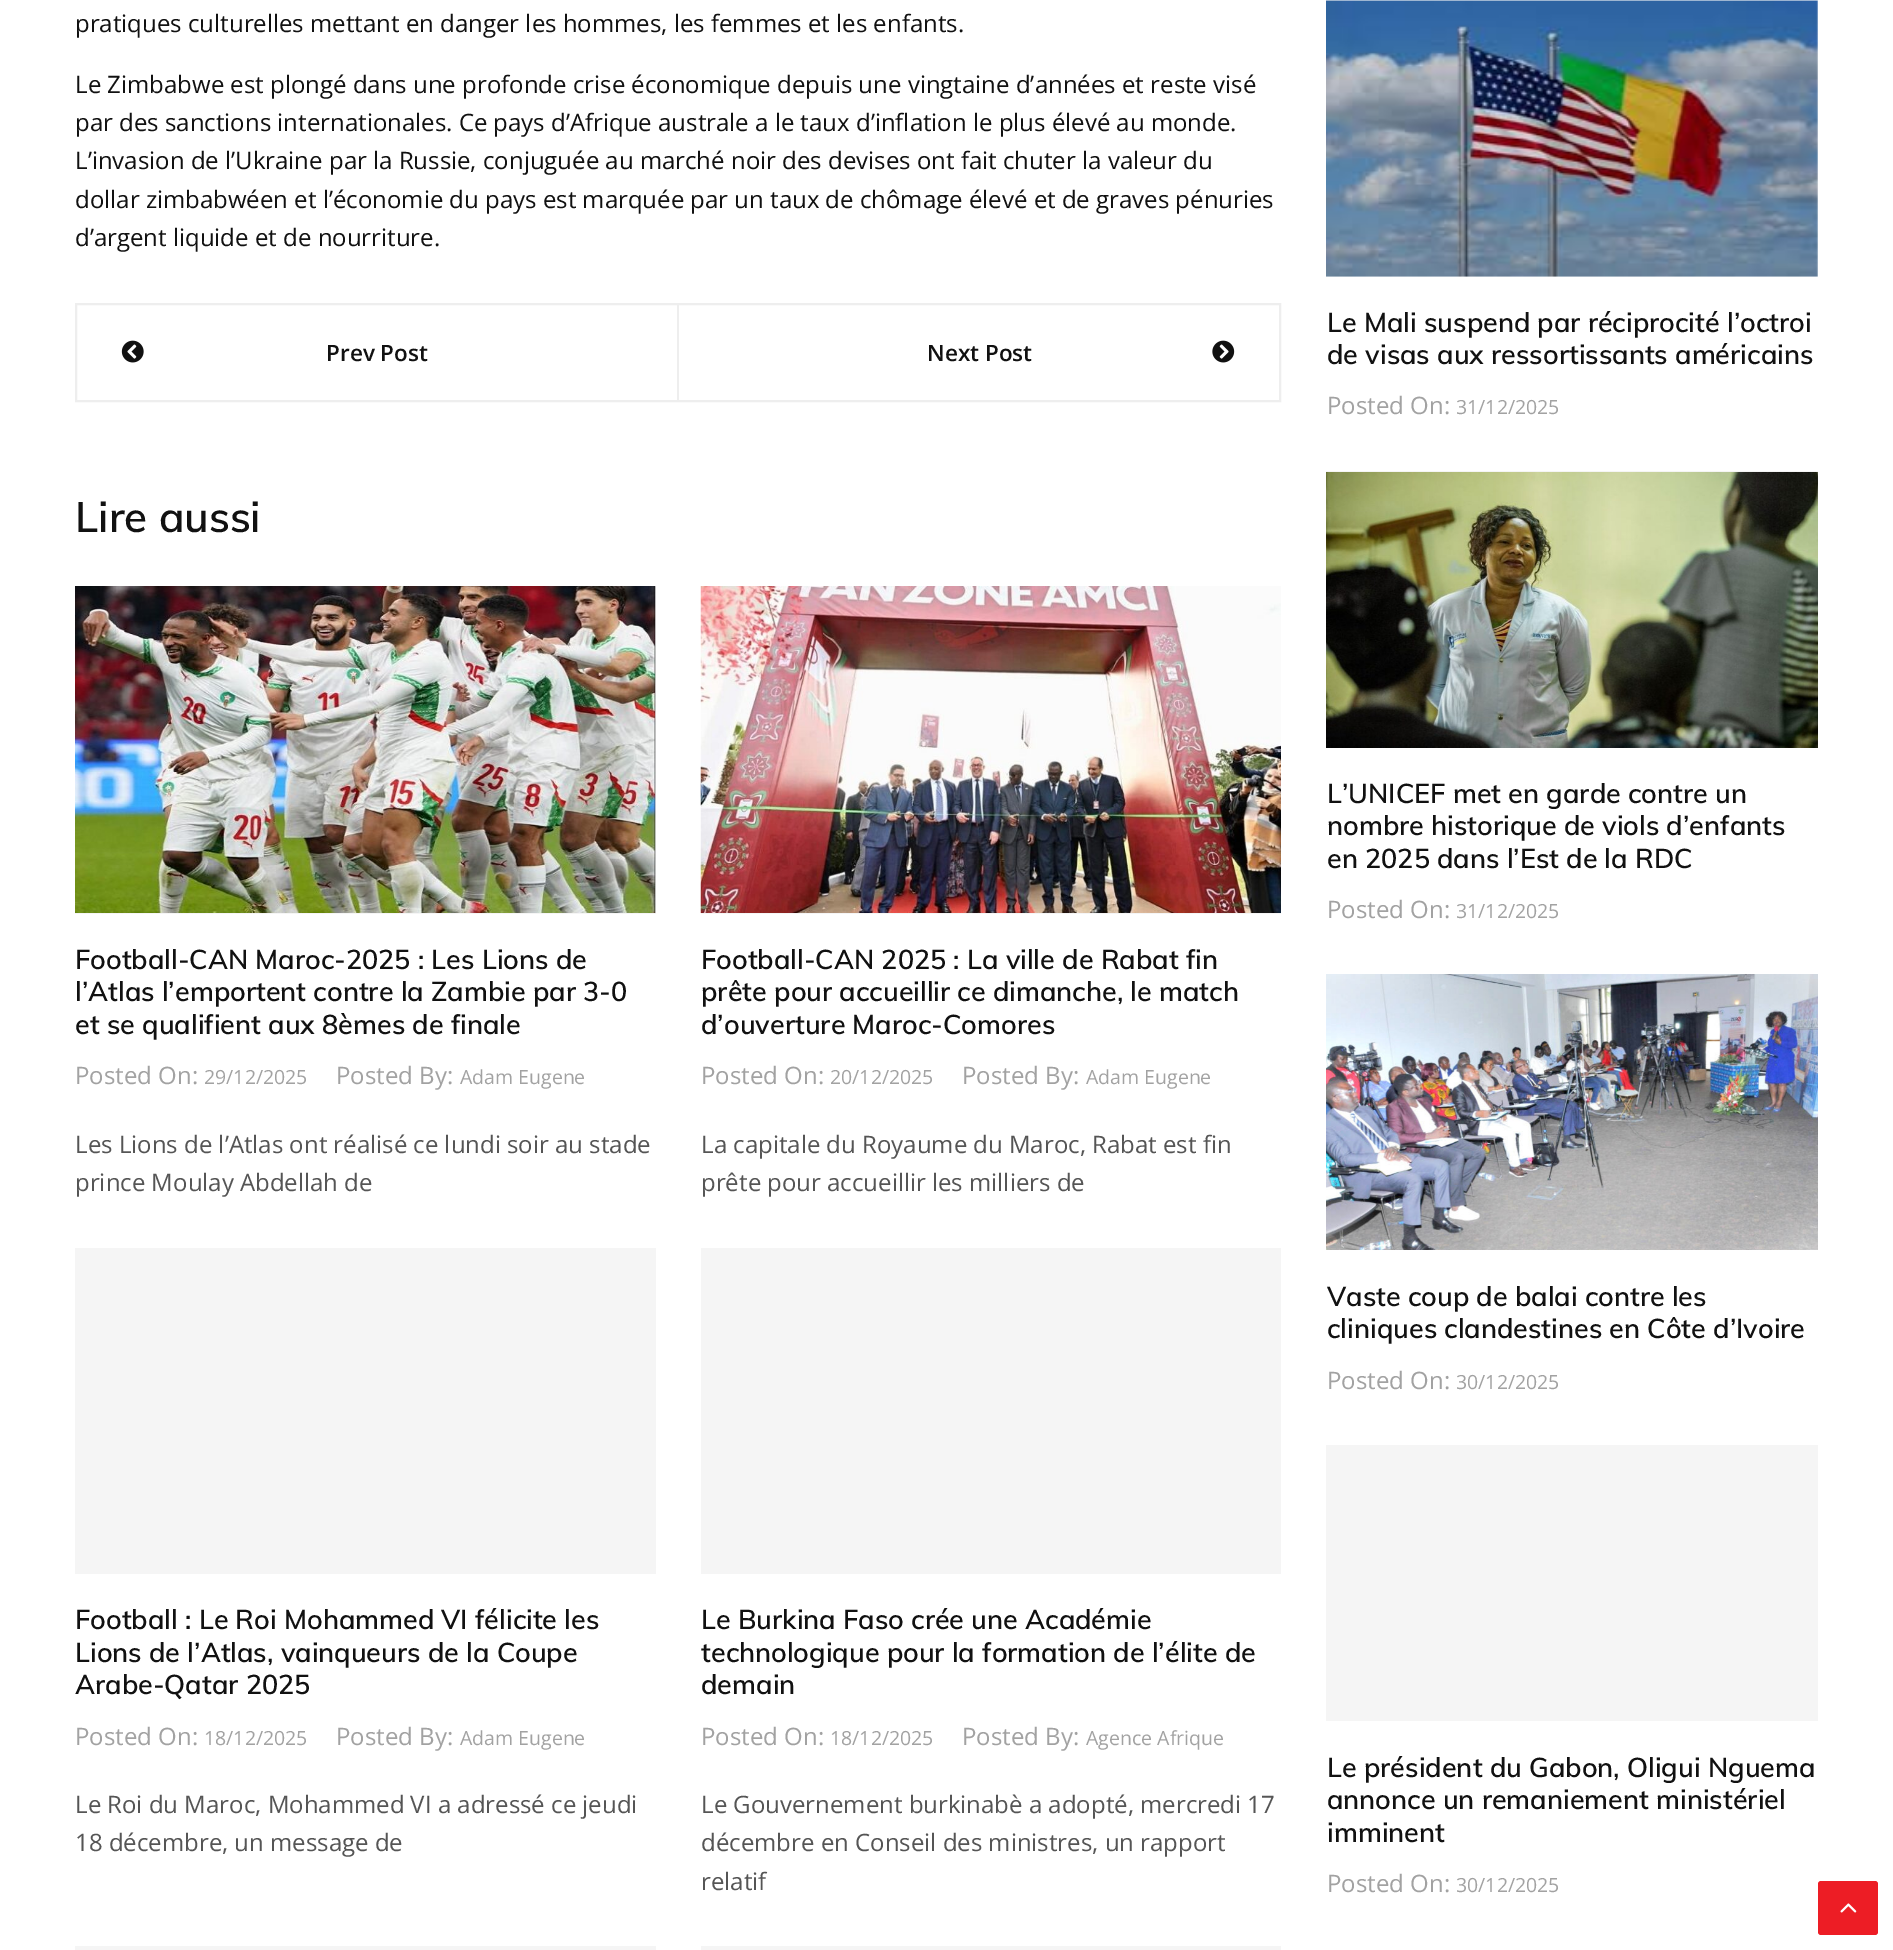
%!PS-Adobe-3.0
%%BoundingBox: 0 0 1893 1950
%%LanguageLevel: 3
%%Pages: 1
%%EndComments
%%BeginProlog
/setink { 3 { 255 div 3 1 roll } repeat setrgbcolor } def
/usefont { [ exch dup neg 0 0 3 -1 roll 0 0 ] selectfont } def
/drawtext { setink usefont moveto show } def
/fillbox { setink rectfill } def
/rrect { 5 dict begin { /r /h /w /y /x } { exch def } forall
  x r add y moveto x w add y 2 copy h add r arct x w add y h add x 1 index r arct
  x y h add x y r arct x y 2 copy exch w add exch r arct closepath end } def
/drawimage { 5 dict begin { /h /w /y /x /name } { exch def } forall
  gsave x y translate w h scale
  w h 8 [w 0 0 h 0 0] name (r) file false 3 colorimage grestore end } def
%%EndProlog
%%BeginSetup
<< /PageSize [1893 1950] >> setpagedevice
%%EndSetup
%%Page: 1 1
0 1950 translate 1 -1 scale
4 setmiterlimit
0 0 1893 1950 255 255 255 fillbox
(pratiques culturelles mettant en danger les hommes, les femmes et les enfants.) 75 32 /OpenSans-Regular 24 17 17 17 drawtext
(Le Zimbabwe est plongé dans une profonde crise économique depuis une vingtaine d’années et reste visé) 75 93 /OpenSans-Regular 24 17 17 17 drawtext
(par des sanctions internationales. Ce pays d’Afrique australe a le taux d’inflation le plus élevé au monde.) 75 131 /OpenSans-Regular 24 17 17 17 drawtext
(L’invasion de l’Ukraine par la Russie, conjuguée au marché noir des devises ont fait chuter la valeur du) 75 169 /OpenSans-Regular 24 17 17 17 drawtext
(dollar zimbabwéen et l’économie du pays est marquée par un taux de chômage élevé et de graves pénuries) 75 208 /OpenSans-Regular 24 17 17 17 drawtext
(d’argent liquide et de nourriture.) 75 246 /OpenSans-Regular 24 17 17 17 drawtext
238 238 238 setink
2 setlinewidth
76 304 1204 97 rectstroke
677 305 2 96 238 238 238 fillbox
(assets/img1.rgb) 121 340 23 23 drawimage
(Prev Post) 326 361 /OpenSans-SemiBold 22.5 17 17 17 drawtext
(Next Post) 927 361 /OpenSans-SemiBold 22.5 17 17 17 drawtext
(assets/img2.rgb) 1212 340 23 23 drawimage
(Lire aussi) 75 532 /Muli-SemiBold 42 17 17 17 drawtext
75 587 581 327 245 245 245 fillbox
(assets/img3.rgb) 75 586 581 327 drawimage
(Football-CAN Maroc-2025 : Les Lions de) 75 969 /Muli-SemiBold 27 17 17 17 drawtext
(l’Atlas l’emportent contre la Zambie par 3-0) 75 1001 /Muli-SemiBold 27 17 17 17 drawtext
(et se qualifient aux 8èmes de finale) 75 1034 /Muli-SemiBold 27 17 17 17 drawtext
(Posted On:) 75 1084 /OpenSans-Regular 24 162 162 162 drawtext
(29/12/2025) 204 1084 /OpenSans-Regular 19.5 162 162 162 drawtext
(Posted By:) 336 1084 /OpenSans-Regular 24 162 162 162 drawtext
(Adam Eugene) 460 1084 /OpenSans-Regular 19.5 162 162 162 drawtext
(Les Lions de l’Atlas ont réalisé ce lundi soir au stade) 75 1153 /OpenSans-Regular 24 85 85 85 drawtext
(prince Moulay Abdellah de) 75 1191 /OpenSans-Regular 24 85 85 85 drawtext
701 913 580 1 245 245 245 fillbox
(assets/img4.rgb) 700 586 581 327 drawimage
(Football-CAN 2025 : La ville de Rabat fin) 701 969 /Muli-SemiBold 27 17 17 17 drawtext
(prête pour accueillir ce dimanche, le match) 701 1001 /Muli-SemiBold 27 17 17 17 drawtext
(d’ouverture Maroc-Comores) 701 1034 /Muli-SemiBold 27 17 17 17 drawtext
(Posted On:) 701 1084 /OpenSans-Regular 24 162 162 162 drawtext
(20/12/2025) 830 1084 /OpenSans-Regular 19.5 162 162 162 drawtext
(Posted By:) 962 1084 /OpenSans-Regular 24 162 162 162 drawtext
(Adam Eugene) 1086 1084 /OpenSans-Regular 19.5 162 162 162 drawtext
(La capitale du Royaume du Maroc, Rabat est fin) 701 1153 /OpenSans-Regular 24 85 85 85 drawtext
(prête pour accueillir les milliers de) 701 1191 /OpenSans-Regular 24 85 85 85 drawtext
75 1248 581 326 245 245 245 fillbox
(Football : Le Roi Mohammed VI félicite les) 75 1629 /Muli-SemiBold 27 17 17 17 drawtext
(Lions de l’Atlas, vainqueurs de la Coupe) 75 1662 /Muli-SemiBold 27 17 17 17 drawtext
(Arabe-Qatar 2025) 75 1694 /Muli-SemiBold 27 17 17 17 drawtext
(Posted On:) 75 1745 /OpenSans-Regular 24 162 162 162 drawtext
(18/12/2025) 204 1745 /OpenSans-Regular 19.5 162 162 162 drawtext
(Posted By:) 336 1745 /OpenSans-Regular 24 162 162 162 drawtext
(Adam Eugene) 460 1745 /OpenSans-Regular 19.5 162 162 162 drawtext
(Le Roi du Maroc, Mohammed VI a adressé ce jeudi) 75 1813 /OpenSans-Regular 24 85 85 85 drawtext
(18 décembre, un message de) 75 1851 /OpenSans-Regular 24 85 85 85 drawtext
701 1248 580 326 245 245 245 fillbox
(Le Burkina Faso crée une Académie) 701 1629 /Muli-SemiBold 27 17 17 17 drawtext
(technologique pour la formation de l’élite de) 701 1662 /Muli-SemiBold 27 17 17 17 drawtext
(demain) 701 1694 /Muli-SemiBold 27 17 17 17 drawtext
(Posted On:) 701 1745 /OpenSans-Regular 24 162 162 162 drawtext
(18/12/2025) 830 1745 /OpenSans-Regular 19.5 162 162 162 drawtext
(Posted By:) 962 1745 /OpenSans-Regular 24 162 162 162 drawtext
(Agence Afrique) 1086 1745 /OpenSans-Regular 19.5 162 162 162 drawtext
(Le Gouvernement burkinabè a adopté, mercredi 17) 701 1813 /OpenSans-Regular 24 85 85 85 drawtext
(décembre en Conseil des ministres, un rapport) 701 1851 /OpenSans-Regular 24 85 85 85 drawtext
(relatif) 701 1890 /OpenSans-Regular 24 85 85 85 drawtext
75 1946 581 4 245 245 245 fillbox
701 1946 580 4 245 245 245 fillbox
1326 0 492 276 245 245 245 fillbox
(assets/img5.rgb) 1326 0 492 277 drawimage
(Le Mali suspend par réciprocité l’octroi) 1327 332 /Muli-SemiBold 27 17 17 17 drawtext
(de visas aux ressortissants américains) 1327 364 /Muli-SemiBold 27 17 17 17 drawtext
(Posted On:) 1327 414 /OpenSans-Regular 24 162 162 162 drawtext
(31/12/2025) 1456 414 /OpenSans-Regular 19.5 162 162 162 drawtext
1326 471 492 1 245 245 245 fillbox
(assets/img6.rgb) 1326 472 492 276 drawimage
(L’UNICEF met en garde contre un) 1327 803 /Muli-SemiBold 27 17 17 17 drawtext
(nombre historique de viols d’enfants) 1327 835 /Muli-SemiBold 27 17 17 17 drawtext
(en 2025 dans l’Est de la RDC) 1327 868 /Muli-SemiBold 27 17 17 17 drawtext
(Posted On:) 1327 918 /OpenSans-Regular 24 162 162 162 drawtext
(31/12/2025) 1456 918 /OpenSans-Regular 19.5 162 162 162 drawtext
(assets/img7.rgb) 1326 974 492 276 drawimage
(Vaste coup de balai contre les) 1327 1306 /Muli-SemiBold 27 17 17 17 drawtext
(cliniques clandestines en Côte d’Ivoire) 1327 1338 /Muli-SemiBold 27 17 17 17 drawtext
(Posted On:) 1327 1389 /OpenSans-Regular 24 162 162 162 drawtext
(30/12/2025) 1456 1389 /OpenSans-Regular 19.5 162 162 162 drawtext
1326 1445 492 276 245 245 245 fillbox
(Le président du Gabon, Oligui Nguema) 1327 1777 /Muli-SemiBold 27 17 17 17 drawtext
(annonce un remaniement ministériel) 1327 1809 /Muli-SemiBold 27 17 17 17 drawtext
(imminent) 1327 1842 /Muli-SemiBold 27 17 17 17 drawtext
(Posted On:) 1327 1892 /OpenSans-Regular 24 162 162 162 drawtext
(30/12/2025) 1456 1892 /OpenSans-Regular 19.5 162 162 162 drawtext
237 29 37 setink
1818 1881 60 54 3 rrect fill
(assets/img8.rgb) 1840 1903 17 10 drawimage
showpage
%%EOF
